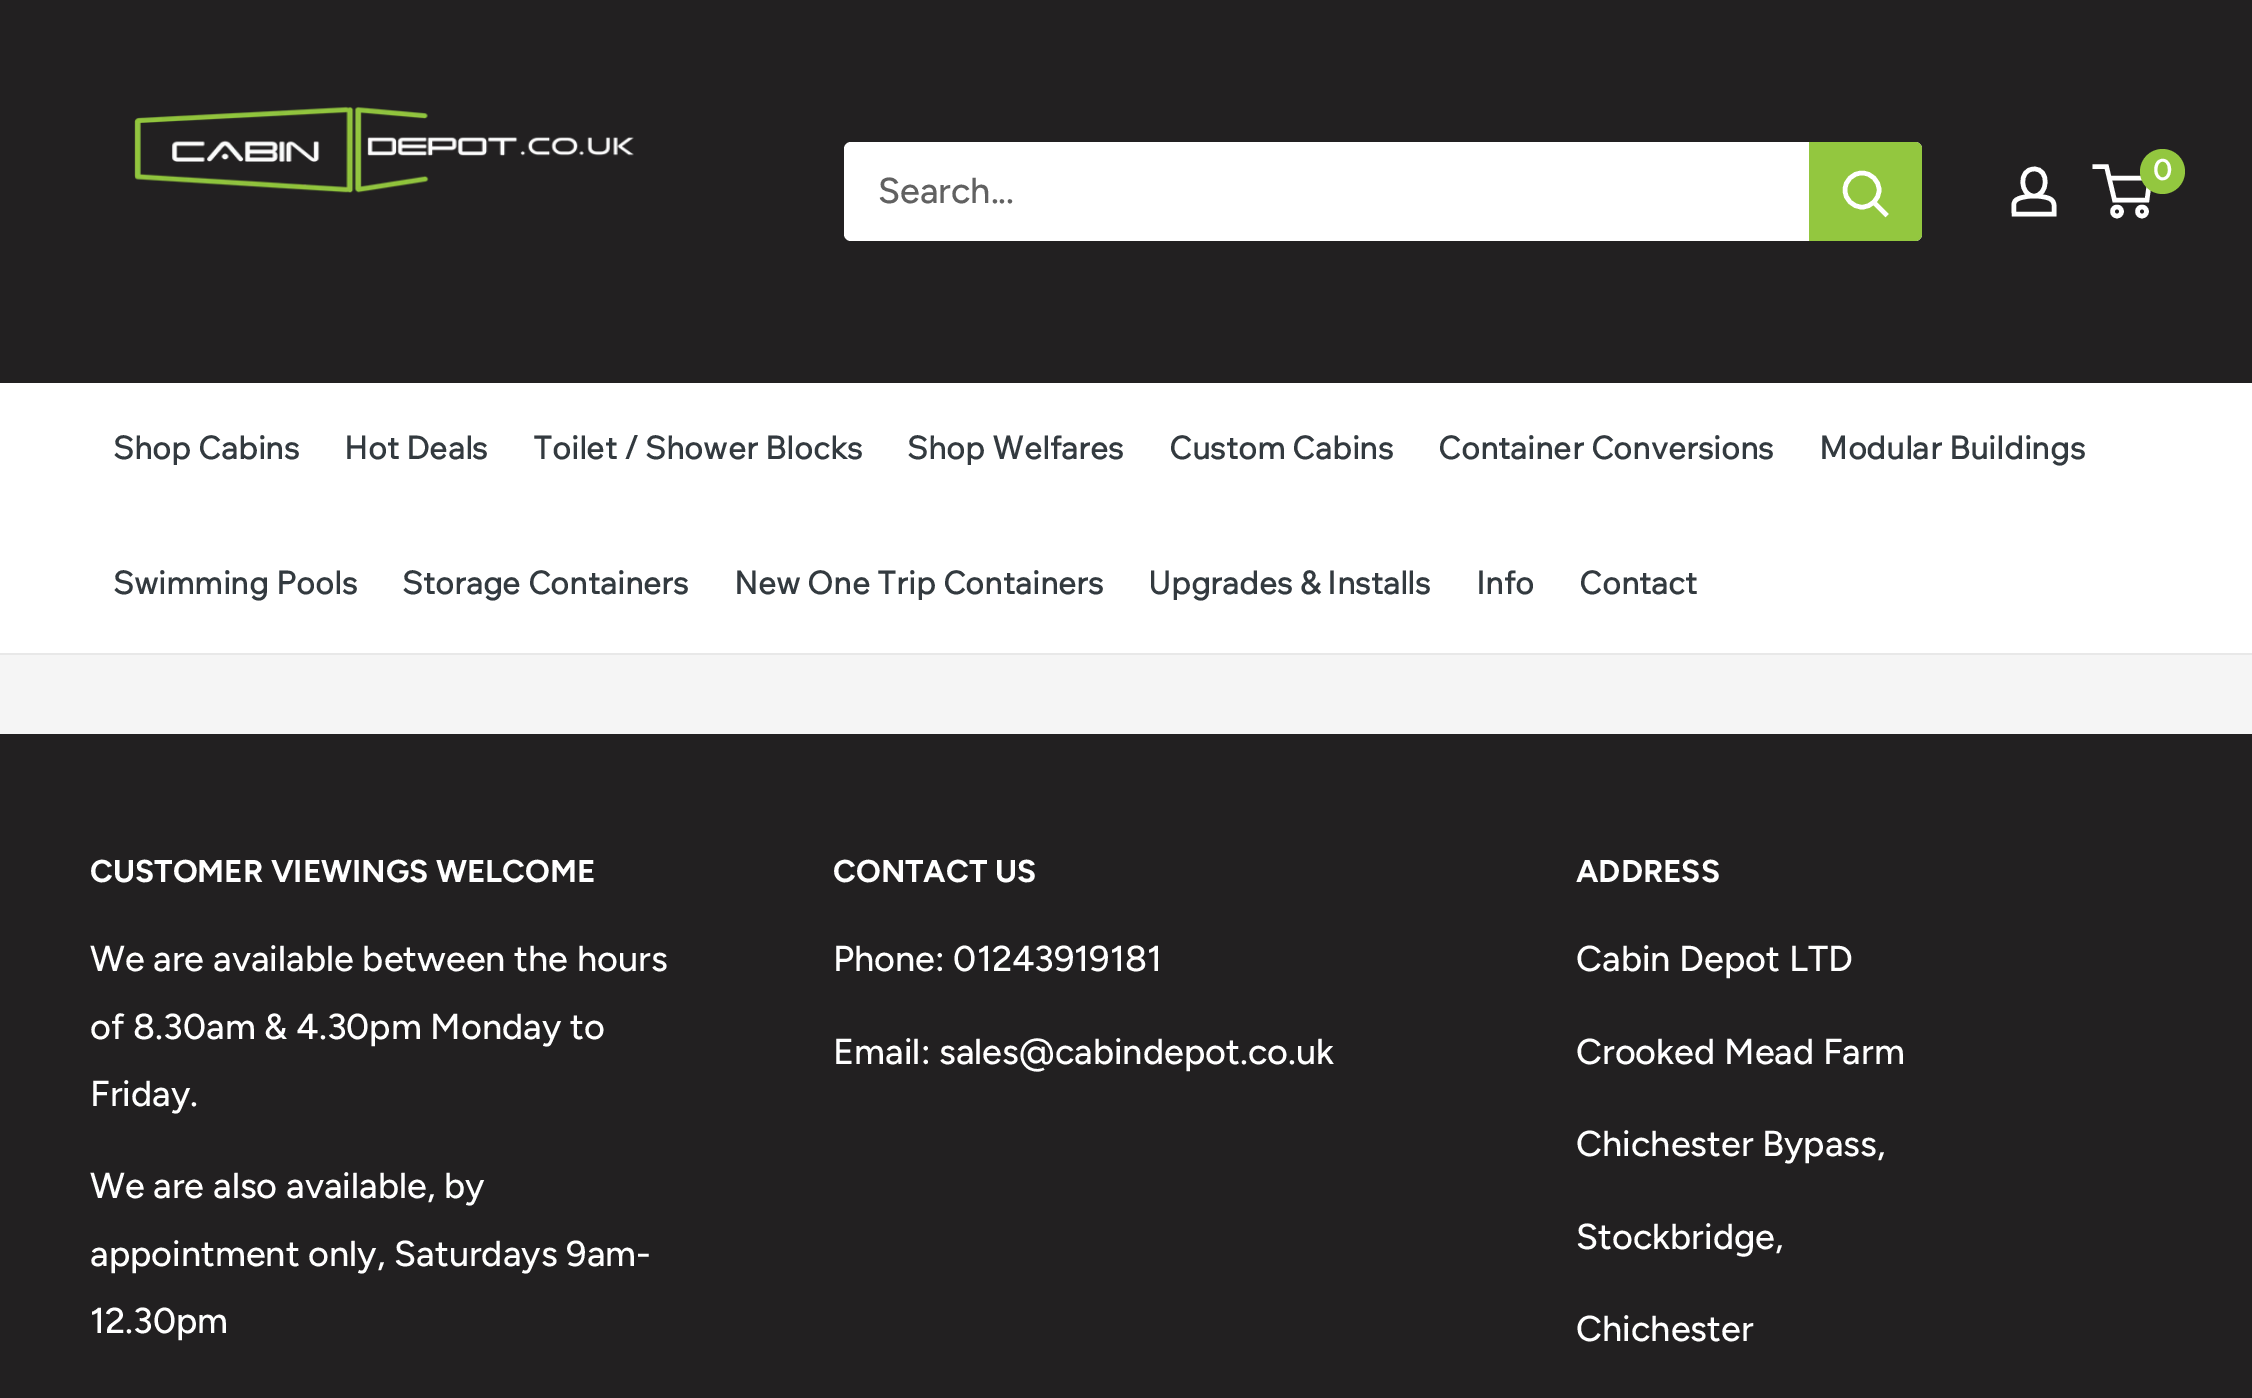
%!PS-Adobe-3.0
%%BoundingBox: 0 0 2252 1398
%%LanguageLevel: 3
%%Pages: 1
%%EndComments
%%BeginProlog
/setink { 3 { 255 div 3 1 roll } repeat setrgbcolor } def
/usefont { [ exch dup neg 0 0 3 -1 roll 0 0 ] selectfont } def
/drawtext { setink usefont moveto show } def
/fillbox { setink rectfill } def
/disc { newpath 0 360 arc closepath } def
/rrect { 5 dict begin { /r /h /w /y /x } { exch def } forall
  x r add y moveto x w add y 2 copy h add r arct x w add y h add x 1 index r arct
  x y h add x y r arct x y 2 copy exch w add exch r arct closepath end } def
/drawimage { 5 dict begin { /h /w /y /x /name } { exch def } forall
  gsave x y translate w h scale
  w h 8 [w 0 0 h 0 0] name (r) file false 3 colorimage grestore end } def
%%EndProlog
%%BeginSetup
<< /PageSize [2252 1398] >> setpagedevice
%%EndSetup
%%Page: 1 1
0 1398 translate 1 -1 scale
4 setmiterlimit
0 0 2252 1398 245 245 245 fillbox
0 0 2252 383 34 32 33 fillbox
(assets/img1.rgb) 134 106 500 87 drawimage
255 255 255 setink
4.5 setlinewidth
2034 196 moveto 2038 196 2042.5 196.5 2046.5 197.5 curveto 2056 200 2054 205.5 2054 214 curveto 2014 214 lineto 2014 204.5 2011.5 200 2022 197.5 curveto 2026 196.5 2030 196 2034 196 curveto closepath 2034 196 moveto 2020 196 2018 169 2034 169 curveto 2050 168.5 2048 196 2034 196 curveto closepath stroke
2117 211.5 4.5 disc stroke
2142 211.5 4.5 disc stroke
2109 178 moveto 2150 178 lineto 2147 200 lineto 2114.5 200 lineto 2106.5 166.5 lineto 2092.5 166.5 lineto stroke
147 199 63 setink
2162.5 171.5 22.5 disc fill
(0) 2153 180 /Figtree-SemiBold 30 255 255 255 drawtext
844 142 1078 99 7 rrect fill
(Search...) 878 203 /Figtree-Medium 36 97 97 97 drawtext
147 199 63 setink
1809 142 moveto 1915 142 lineto 1919 142 1922 145 1922 149 curveto 1922 234 lineto 1922 238 1919 241 1915 241 curveto 1809 241 lineto closepath fill
255 255 255 setink
2 setlinecap
1885.5 214 moveto 1874 202.5 lineto stroke
0 setlinecap
1862 190 17 disc stroke
0 383 2252 270 255 255 255 fillbox
0 653 2252 2 232 232 232 fillbox
(Shop Cabins) 113 459 /WixMadeforText-Bold 31.5 51 58 63 drawtext
(Hot Deals) 344 459 /WixMadeforText-Bold 31.5 51 58 63 drawtext
(Toilet / Shower Blocks) 533 459 /WixMadeforText-Bold 31.5 51 58 63 drawtext
(Shop Welfares) 907 459 /WixMadeforText-Bold 31.5 51 58 63 drawtext
(Custom Cabins) 1169 459 /WixMadeforText-Bold 31.5 51 58 63 drawtext
(Container Conversions) 1438 459 /WixMadeforText-Bold 31.5 51 58 63 drawtext
(Modular Buildings) 1819 459 /WixMadeforText-Bold 31.5 51 58 63 drawtext
(Swimming Pools) 113 594 /WixMadeforText-Bold 31.5 51 58 63 drawtext
(Storage Containers) 402 594 /WixMadeforText-Bold 31.5 51 58 63 drawtext
(New One Trip Containers) 734 594 /WixMadeforText-Bold 31.5 51 58 63 drawtext
(Upgrades & Installs) 1148 594 /WixMadeforText-Bold 31.5 51 58 63 drawtext
(Info) 1476 594 /WixMadeforText-Bold 31.5 51 58 63 drawtext
(Contact) 1579 594 /WixMadeforText-Bold 31.5 51 58 63 drawtext
0 734 2252 664 34 32 33 fillbox
(CUSTOMER VIEWINGS WELCOME) 90 882 /Figtree-Bold 31.5 255 255 255 drawtext
(We are available between the hours) 90 971 /Figtree-Medium 36 255 255 255 drawtext
(of 8.30am & 4.30pm Monday to) 90 1039 /Figtree-Medium 36 255 255 255 drawtext
(Friday.) 90 1106 /Figtree-Medium 36 255 255 255 drawtext
(We are also available, by) 90 1198 /Figtree-Medium 36 255 255 255 drawtext
(appointment only, Saturdays 9am-) 90 1266 /Figtree-Medium 36 255 255 255 drawtext
(12.30pm) 90 1333 /Figtree-Medium 36 255 255 255 drawtext
(CONTACT US) 833 882 /Figtree-Bold 31.5 255 255 255 drawtext
(Phone: 01243919181) 833 971 /Figtree-Medium 36 255 255 255 drawtext
(Email: sales@cabindepot.co.uk) 833 1064 /Figtree-Medium 36 255 255 255 drawtext
(ADDRESS) 1576 882 /Figtree-Bold 31.5 255 255 255 drawtext
(Cabin Depot LTD) 1576 971 /Figtree-Medium 36 255 255 255 drawtext
(Crooked Mead Farm) 1576 1064 /Figtree-Medium 36 255 255 255 drawtext
(Chichester Bypass,) 1576 1156 /Figtree-Medium 36 255 255 255 drawtext
(Stockbridge,) 1576 1249 /Figtree-Medium 36 255 255 255 drawtext
(Chichester) 1576 1341 /Figtree-Medium 36 255 255 255 drawtext
showpage
%%EOF
